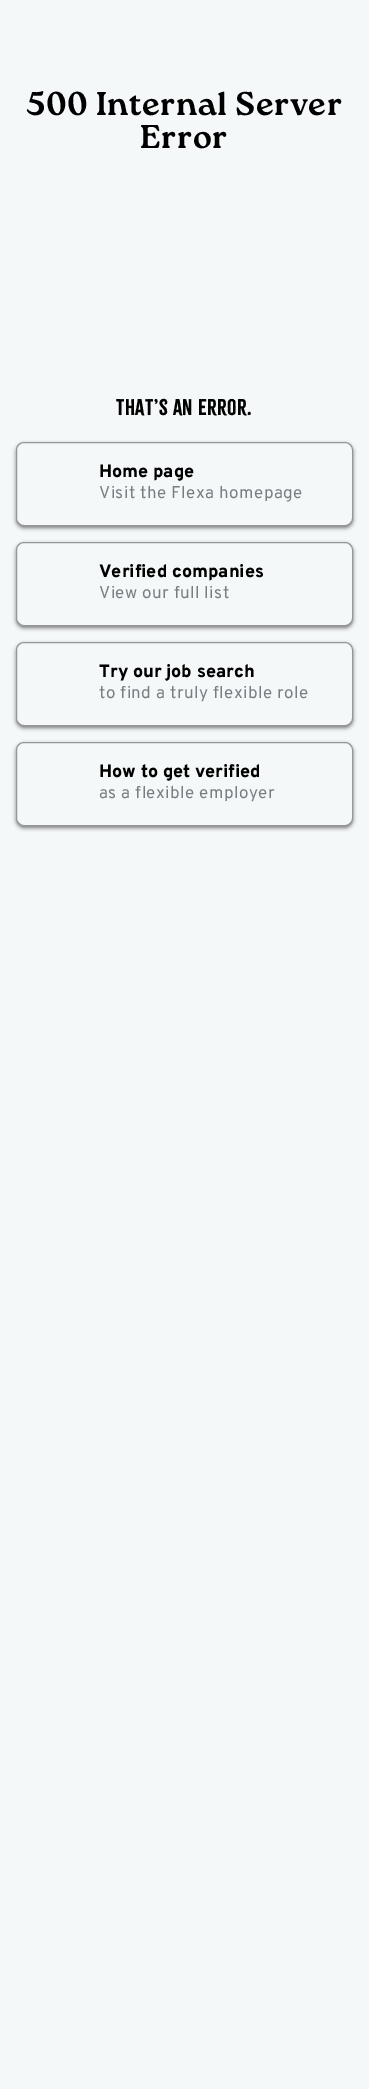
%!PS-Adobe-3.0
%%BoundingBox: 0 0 369 2089
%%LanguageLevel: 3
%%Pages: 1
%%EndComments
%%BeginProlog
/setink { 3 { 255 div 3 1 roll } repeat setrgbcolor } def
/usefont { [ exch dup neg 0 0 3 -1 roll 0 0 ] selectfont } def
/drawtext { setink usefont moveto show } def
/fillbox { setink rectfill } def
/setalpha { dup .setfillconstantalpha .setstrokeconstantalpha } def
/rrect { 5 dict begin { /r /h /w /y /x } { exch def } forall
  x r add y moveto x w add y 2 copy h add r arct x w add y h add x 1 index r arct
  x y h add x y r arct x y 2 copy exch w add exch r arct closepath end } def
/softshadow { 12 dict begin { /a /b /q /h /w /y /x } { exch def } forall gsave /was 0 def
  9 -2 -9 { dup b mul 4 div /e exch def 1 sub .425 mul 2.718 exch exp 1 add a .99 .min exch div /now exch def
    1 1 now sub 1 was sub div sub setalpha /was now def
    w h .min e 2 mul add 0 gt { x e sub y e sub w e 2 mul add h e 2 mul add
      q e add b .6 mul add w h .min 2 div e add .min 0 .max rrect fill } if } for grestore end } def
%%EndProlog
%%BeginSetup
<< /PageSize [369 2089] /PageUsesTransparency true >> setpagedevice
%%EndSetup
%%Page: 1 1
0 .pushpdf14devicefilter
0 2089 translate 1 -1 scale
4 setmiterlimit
0 0 369 2089 244 248 248 fillbox
/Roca-Bold 33 usefont
0 0 0 setink
26 115 moveto 0.5 0 (500 Internal Server) ashow
140 148 moveto 0.5 0 (Error) ashow
/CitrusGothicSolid-Regular 20 usefont
116 415 moveto 0.5 0 (That’s an error.) ashow
gsave
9 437 moveto 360 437 lineto 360 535 lineto 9 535 lineto closepath 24 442 moveto 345 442 lineto 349.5 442 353 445.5 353 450 curveto 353 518 lineto 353 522.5 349.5 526 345 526 curveto 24 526 lineto 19.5 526 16 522.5 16 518 curveto 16 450 lineto 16 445.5 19.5 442 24 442 curveto closepath eoclip newpath
16 444 337 84 8 2 0.5 softshadow
grestore
151 151 151 setink
16.5 442.5 336 83 7.5 rrect stroke
(Home page) 99 477 /Overpass-ExtraBold 18 0 0 0 drawtext
/Overpass-Regular 17 usefont
123 125 131 setink
99 498 moveto 0.5 0 (Visit the Flexa homepage) ashow
gsave
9 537 moveto 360 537 lineto 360 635 lineto 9 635 lineto closepath 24 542 moveto 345 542 lineto 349.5 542 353 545.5 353 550 curveto 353 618 lineto 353 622.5 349.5 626 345 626 curveto 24 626 lineto 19.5 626 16 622.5 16 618 curveto 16 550 lineto 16 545.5 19.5 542 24 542 curveto closepath eoclip newpath
0 0 0 setink
16 544 337 84 8 2 0.5 softshadow
grestore
151 151 151 setink
16.5 542.5 336 83 7.5 rrect stroke
(Verified companies) 99 577 /Overpass-ExtraBold 18 0 0 0 drawtext
/Overpass-Regular 17 usefont
123 125 131 setink
99 598 moveto 0.5 0 (View our full list) ashow
gsave
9 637 moveto 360 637 lineto 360 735 lineto 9 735 lineto closepath 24 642 moveto 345 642 lineto 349.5 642 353 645.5 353 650 curveto 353 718 lineto 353 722.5 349.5 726 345 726 curveto 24 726 lineto 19.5 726 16 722.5 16 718 curveto 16 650 lineto 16 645.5 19.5 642 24 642 curveto closepath eoclip newpath
0 0 0 setink
16 644 337 84 8 2 0.5 softshadow
grestore
151 151 151 setink
16.5 642.5 336 83 7.5 rrect stroke
(Try our job search) 99 677 /Overpass-ExtraBold 18 0 0 0 drawtext
/Overpass-Regular 17 usefont
123 125 131 setink
99 698 moveto 0.5 0 (to find a truly flexible role) ashow
gsave
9 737 moveto 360 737 lineto 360 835 lineto 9 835 lineto closepath 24 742 moveto 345 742 lineto 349.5 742 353 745.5 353 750 curveto 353 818 lineto 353 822.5 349.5 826 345 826 curveto 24 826 lineto 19.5 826 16 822.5 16 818 curveto 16 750 lineto 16 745.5 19.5 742 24 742 curveto closepath eoclip newpath
0 0 0 setink
16 744 337 84 8 2 0.5 softshadow
grestore
151 151 151 setink
16.5 742.5 336 83 7.5 rrect stroke
(How to get verified) 99 777 /Overpass-ExtraBold 18 0 0 0 drawtext
/Overpass-Regular 17 usefont
123 125 131 setink
99 798 moveto 0.5 0 (as a flexible employer) ashow
.poppdf14devicefilter showpage
%%EOF
